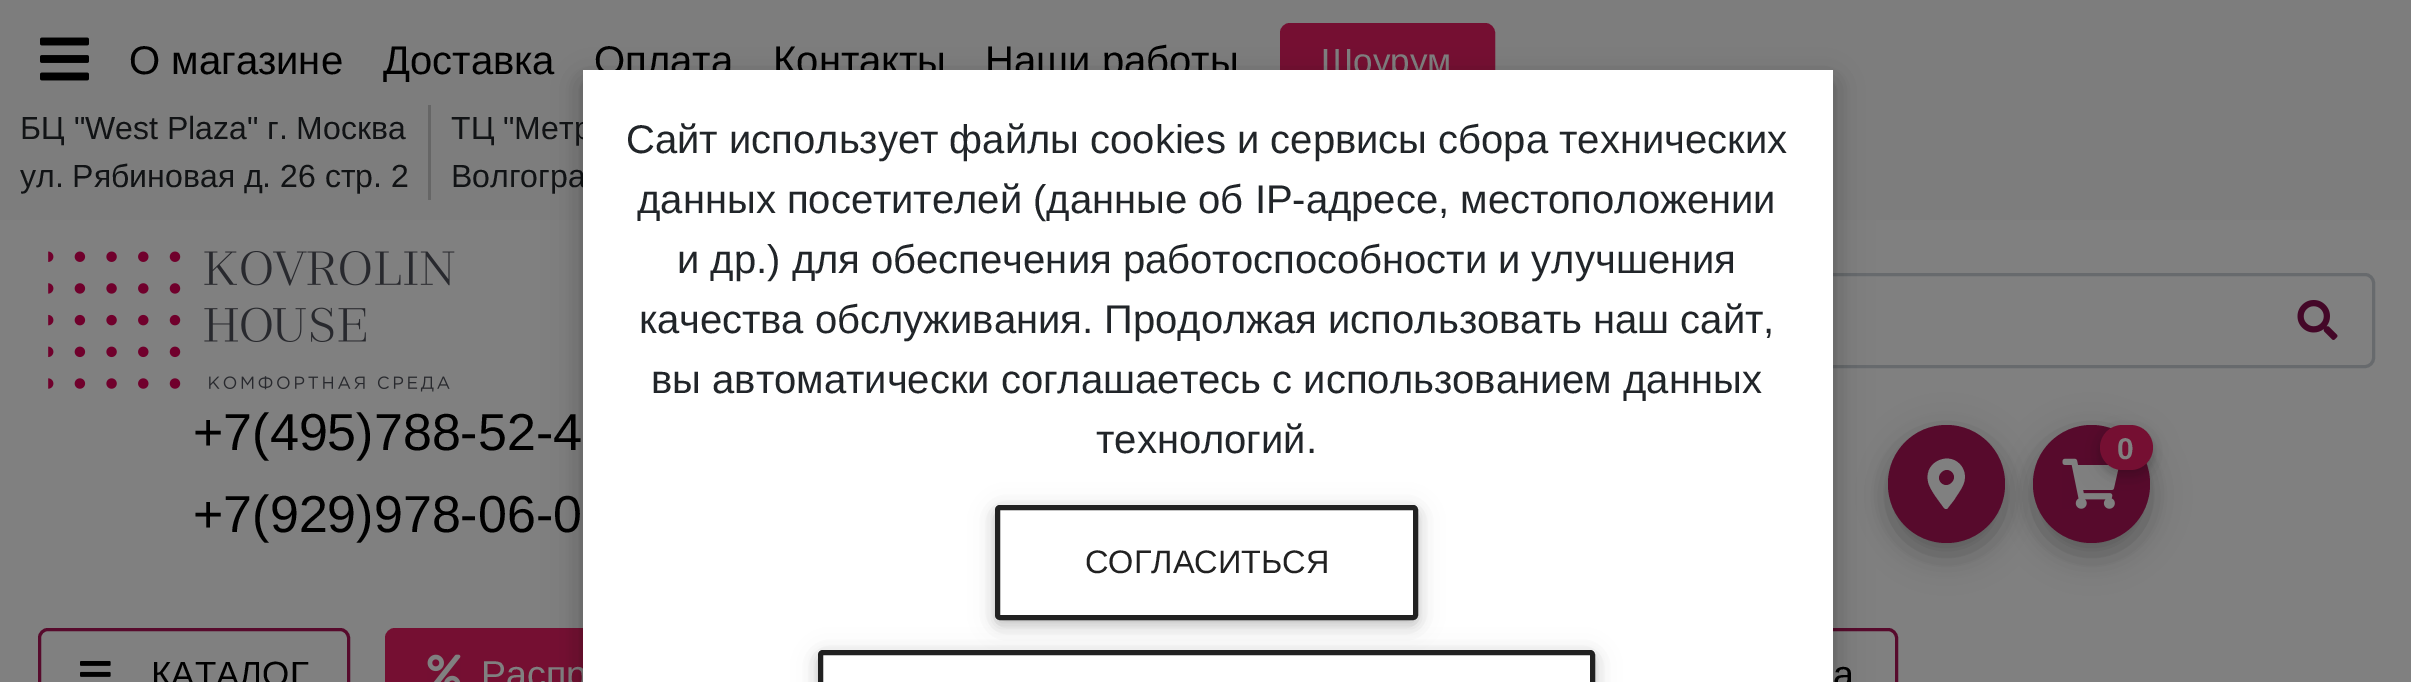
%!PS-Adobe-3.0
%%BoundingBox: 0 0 2411 682
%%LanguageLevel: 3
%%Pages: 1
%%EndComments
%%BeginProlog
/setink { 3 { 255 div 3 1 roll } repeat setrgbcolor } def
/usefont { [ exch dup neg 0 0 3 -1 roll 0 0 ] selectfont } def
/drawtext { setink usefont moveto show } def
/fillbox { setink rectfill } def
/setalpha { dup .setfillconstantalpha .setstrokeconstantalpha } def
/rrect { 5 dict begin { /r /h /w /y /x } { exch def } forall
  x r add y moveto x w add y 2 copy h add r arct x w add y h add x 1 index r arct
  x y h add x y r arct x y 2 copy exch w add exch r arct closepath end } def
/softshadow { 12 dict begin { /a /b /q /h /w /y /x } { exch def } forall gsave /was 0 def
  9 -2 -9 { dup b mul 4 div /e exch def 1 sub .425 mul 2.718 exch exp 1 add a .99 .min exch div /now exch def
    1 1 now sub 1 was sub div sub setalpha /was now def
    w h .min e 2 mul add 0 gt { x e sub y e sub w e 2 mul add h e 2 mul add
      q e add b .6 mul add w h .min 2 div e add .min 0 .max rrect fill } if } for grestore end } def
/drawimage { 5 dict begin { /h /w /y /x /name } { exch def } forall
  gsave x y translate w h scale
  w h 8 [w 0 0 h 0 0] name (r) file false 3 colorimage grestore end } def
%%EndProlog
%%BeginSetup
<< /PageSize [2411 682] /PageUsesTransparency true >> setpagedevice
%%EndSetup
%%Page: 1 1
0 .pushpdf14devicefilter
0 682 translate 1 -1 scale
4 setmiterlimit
0 0 2411 682 128 128 128 fillbox
0 0 2411 220 125 125 125 fillbox
(assets/img1.rgb) 40 37 49 44 drawimage
(О магазине) 129 74 /LiberationSans-Regular 40 0 0 0 drawtext
(Доставка) 383 74 /LiberationSans-Regular 40 0 0 0 drawtext
(Оплата) 594 74 /LiberationSans-Regular 40 0 0 0 drawtext
(Контакты) 773 74 /LiberationSans-Regular 40 0 0 0 drawtext
(Наши работы) 985 74 /LiberationSans-Regular 40 0 0 0 drawtext
117 15 50 setink
1281.5 24.5 212 74 8.5 rrect gsave fill grestore
3 setlinewidth
stroke
(Шоурум) 1321 73 /LiberationSans-Regular 35 128 128 128 drawtext
428 105 3 95 102 102 102 fillbox
(БЦ "West Plaza" г. Москва) 20 139 /LiberationSans-Regular 32 17 19 21 drawtext
(ул. Рябиновая д. 26 стр. 2) 20 187 /LiberationSans-Regular 32 17 19 21 drawtext
(ТЦ "Метр) 451 139 /LiberationSans-Regular 32 17 19 21 drawtext
(Волгогра) 451 187 /LiberationSans-Regular 32 17 19 21 drawtext
(assets/img2.rgb) 48 251 407 141 drawimage
103 106 109 setink
844.5 274.5 1529 92 8.5 rrect stroke
(assets/img3.rgb) 2297 300 41 40 drawimage
(+7\(495\)788-52-4) 193 450 /LiberationSans-Regular 52 0 0 0 drawtext
(+7\(929\)978-06-0) 193 532 /LiberationSans-Regular 52 0 0 0 drawtext
1888 435 117 118 58.5 19 0.15 softshadow
1888 438 117 117 58.5 14 0.18 softshadow
87 10 44 setink
1888 425 117 118 58.5 rrect fill
128 128 128 setink
1944 508 moveto 1940 502 1929 489 1928 481 curveto 1924 461 1951 450 1962 467 curveto 1970 480 1960 490 1954 500 curveto 1947 509 lineto 1946 509 1945 509 1944 508 curveto closepath 1941 483 moveto 1948 490 1959 479 1952 472 curveto 1945 465 1934 476 1941 483 curveto closepath fill
0 0 0 setink
2033 435 117 118 58.5 19 0.15 softshadow
2033 438 117 117 58.5 14 0.18 softshadow
87 10 44 setink
2033 425 117 118 58.5 rrect fill
(assets/img4.rgb) 2062 458 57 51 drawimage
0 0 0 setink
2100 430 53 45 22.5 12.5 0.12 softshadow
2100 430 53 45 22.5 6 0.16 softshadow
117 15 50 setink
2100 425 53 45 22.5 rrect fill
(0) 2117 459 /LiberationSans-Bold 30 128 128 128 drawtext
87 10 44 setink
39.5 629.5 309 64 8.5 rrect stroke
(assets/img5.rgb) 80 661 31 16 drawimage
(КАТАЛОГ) 151 686 /LiberationSans-Regular 35 0 0 0 drawtext
117 15 50 setink
386.5 629.5 352 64 8.5 rrect gsave fill grestore
stroke
(assets/img6.rgb) 427 654 34 28 drawimage
(Распр) 481 687 /LiberationSans-Regular 37.5 128 128 128 drawtext
87 10 44 setink
1706.5 629.5 190 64 8.5 rrect stroke
(а) 1833 687 /LiberationSans-Regular 37.5 0 0 0 drawtext
583 80 1250 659 0 19 0.15 softshadow
583 83 1250 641 0 14 0.18 softshadow
583 70 1250 612 255 255 255 fillbox
(Сайт использует файлы cookies и сервисы сбора технических) 626 153 /LiberationSans-Regular 40 33 37 41 drawtext
(данных посетителей \(данные об IP-адресе, местоположении) 637 213 /LiberationSans-Regular 40 33 37 41 drawtext
(и др.\) для обеспечения работоспособности и улучшения) 677 273 /LiberationSans-Regular 40 33 37 41 drawtext
(качества обслуживания. Продолжая использовать наш сайт,) 639 333 /LiberationSans-Regular 40 33 37 41 drawtext
(вы автоматически соглашаетесь с использованием данных) 651 393 /LiberationSans-Regular 40 33 37 41 drawtext
(технологий.) 1096 453 /LiberationSans-Regular 40 33 37 41 drawtext
gsave
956 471 moveto 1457 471 lineto 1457 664 lineto 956 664 lineto closepath 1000 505 moveto 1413 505 lineto 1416 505 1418 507 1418 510 curveto 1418 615 lineto 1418 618 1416 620 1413 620 curveto 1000 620 lineto 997 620 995 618 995 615 curveto 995 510 lineto 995 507 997 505 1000 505 curveto closepath eoclip newpath
0 0 0 setink
995 510 423 115 5 12.5 0.12 softshadow
grestore
gsave
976 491 moveto 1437 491 lineto 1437 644 lineto 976 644 lineto closepath 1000 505 moveto 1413 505 lineto 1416 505 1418 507 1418 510 curveto 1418 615 lineto 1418 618 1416 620 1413 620 curveto 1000 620 lineto 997 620 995 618 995 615 curveto 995 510 lineto 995 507 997 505 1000 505 curveto closepath eoclip newpath
0 0 0 setink
995 510 423 115 5 6 0.16 softshadow
grestore
33 33 33 setink
5 setlinewidth
997.5 507.5 418 110 2.5 rrect stroke
(СОГЛАСИТЬСЯ) 1085 573 /LiberationSans-Regular 32.5 33 33 33 drawtext
gsave
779 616 moveto 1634 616 lineto 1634 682 lineto 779 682 lineto closepath 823 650 moveto 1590 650 lineto 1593 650 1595 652 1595 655 curveto 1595 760 lineto 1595 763 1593 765 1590 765 curveto 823 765 lineto 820 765 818 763 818 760 curveto 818 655 lineto 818 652 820 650 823 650 curveto closepath eoclip newpath
0 0 0 setink
818 655 777 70 5 12.5 0.12 softshadow
grestore
gsave
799 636 moveto 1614 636 lineto 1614 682 lineto 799 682 lineto closepath 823 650 moveto 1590 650 lineto 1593 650 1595 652 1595 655 curveto 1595 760 lineto 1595 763 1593 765 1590 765 curveto 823 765 lineto 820 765 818 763 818 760 curveto 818 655 lineto 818 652 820 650 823 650 curveto closepath eoclip newpath
0 0 0 setink
818 655 777 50 5 6 0.16 softshadow
grestore
820.5 652.5 772 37 2.5 rrect stroke
.poppdf14devicefilter showpage
%%EOF
